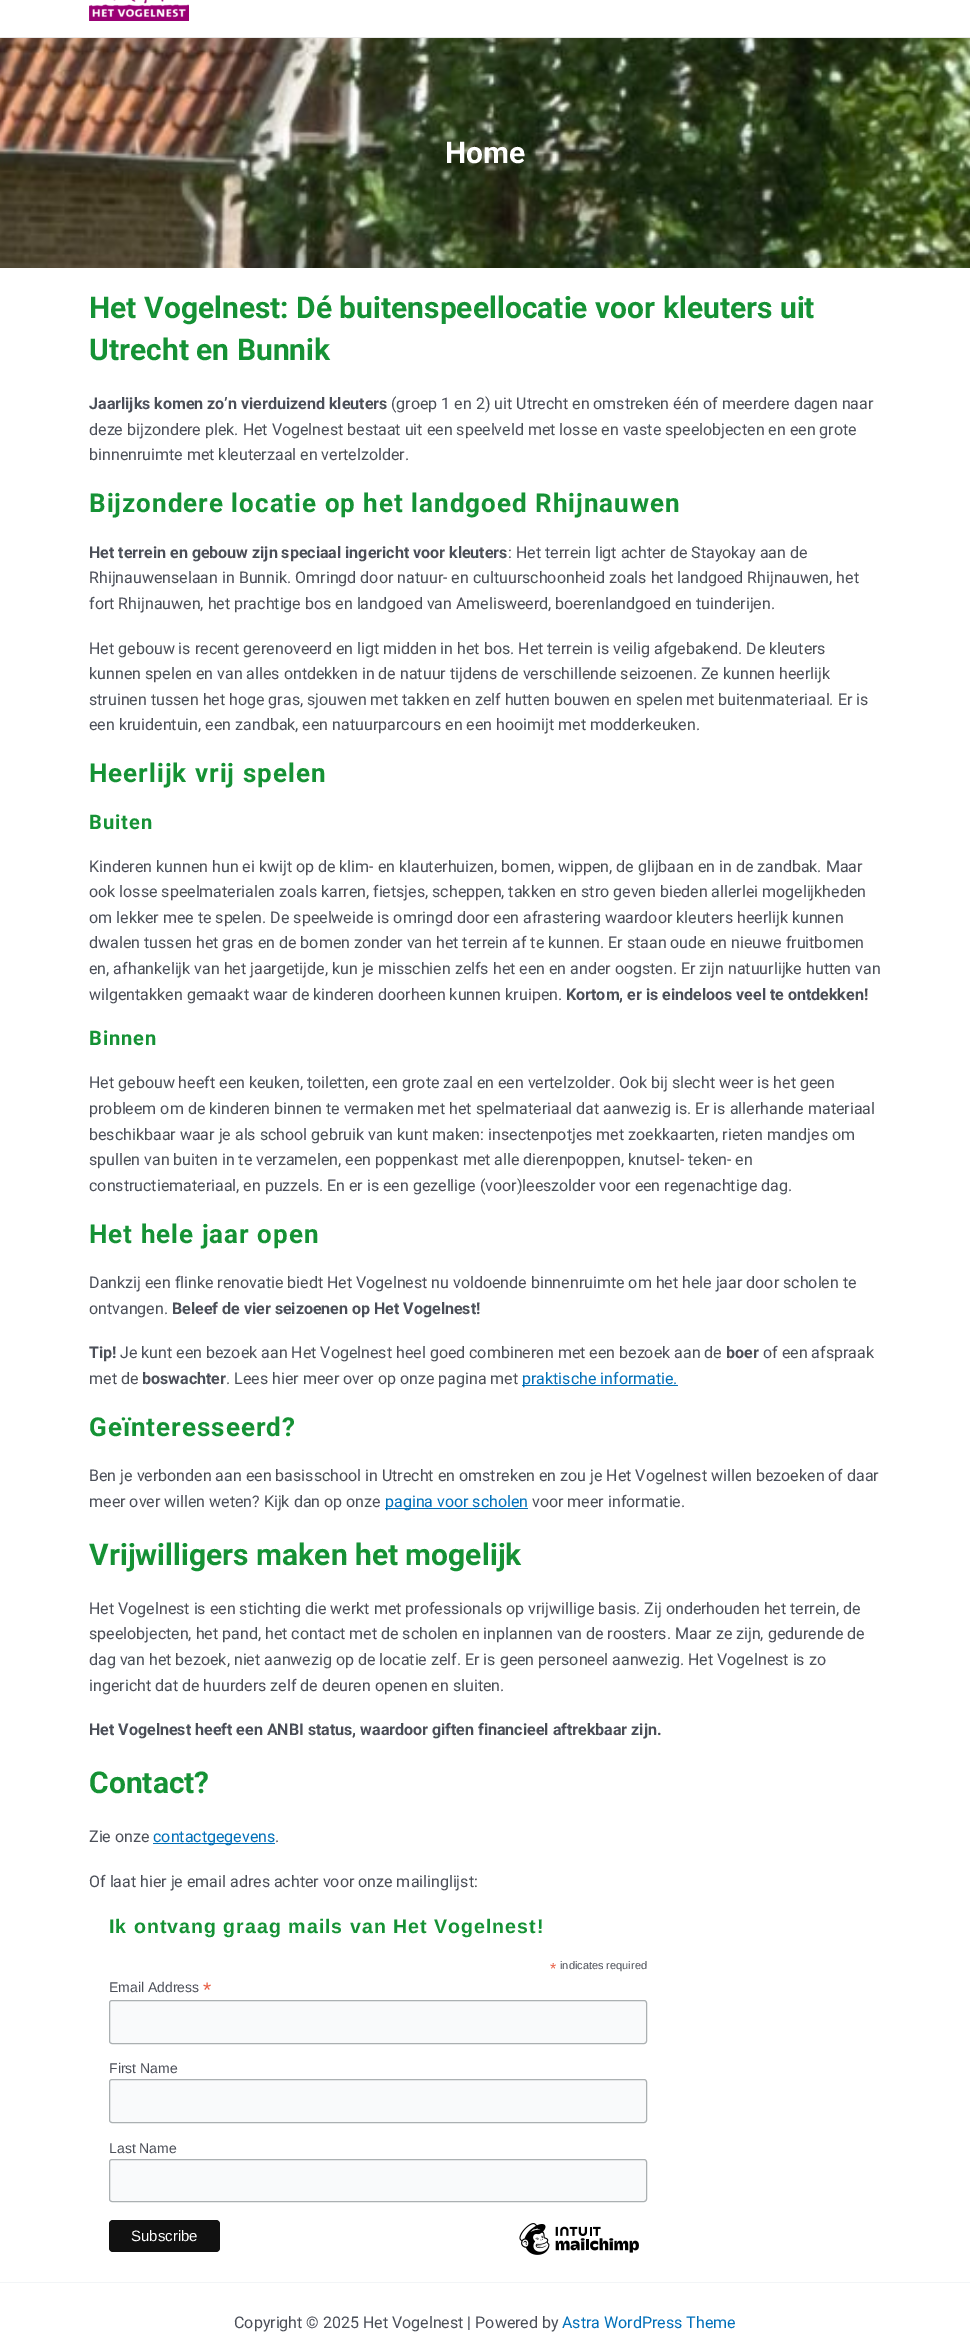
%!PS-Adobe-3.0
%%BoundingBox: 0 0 970 2338
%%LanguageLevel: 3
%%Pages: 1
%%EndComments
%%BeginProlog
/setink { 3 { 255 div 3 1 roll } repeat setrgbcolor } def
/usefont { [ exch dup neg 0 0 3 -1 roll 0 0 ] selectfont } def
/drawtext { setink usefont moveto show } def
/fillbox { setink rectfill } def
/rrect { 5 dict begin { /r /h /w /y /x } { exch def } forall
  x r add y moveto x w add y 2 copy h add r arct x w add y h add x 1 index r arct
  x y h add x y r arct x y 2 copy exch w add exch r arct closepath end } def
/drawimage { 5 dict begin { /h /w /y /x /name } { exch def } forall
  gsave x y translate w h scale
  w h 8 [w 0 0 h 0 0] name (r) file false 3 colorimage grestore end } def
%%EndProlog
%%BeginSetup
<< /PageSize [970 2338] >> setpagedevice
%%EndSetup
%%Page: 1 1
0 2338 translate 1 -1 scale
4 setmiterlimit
0 0 970 2338 255 255 255 fillbox
0 37 970 1 234 234 234 fillbox
(assets/img1.rgb) 89 0 100 21 drawimage
(assets/img2.rgb) 0 38 970 230 drawimage
(Home) 445 163 /Roboto-Bold 30 255 255 255 drawtext
(Het Vogelnest: Dé buitenspeellocatie voor kleuters uit) 89 318 /Roboto-Bold 30 21 146 53 drawtext
(Utrecht en Bunnik) 89 360 /Roboto-Bold 30 21 146 53 drawtext
(Jaarlijks komen zo’n vierduizend kleuters) 89 409 /Roboto-Bold 16 75 79 88 drawtext
(\(groep 1 en 2\) uit Utrecht en omstreken één of meerdere dagen naar) 391 409 /Roboto-Regular 16 75 79 88 drawtext
(deze bijzondere plek. Het Vogelnest bestaat uit een speelveld met losse en vaste speelobjecten en een grote) 89 435 /Roboto-Regular 16 75 79 88 drawtext
(binnenruimte met kleuterzaal en vertelzolder.) 89 460 /Roboto-Regular 16 75 79 88 drawtext
/Roboto-Bold 26 usefont
21 146 53 setink
89 512 moveto 1 0 (Bijzondere locatie op het landgoed Rhijnauwen) ashow
(Het terrein en gebouw zijn speciaal ingericht voor kleuters) 89 558 /Roboto-Bold 16 75 79 88 drawtext
(: Het terrein ligt achter de Stayokay aan de) 508 558 /Roboto-Regular 16 75 79 88 drawtext
(Rhijnauwenselaan in Bunnik. Omringd door natuur- en cultuurschoonheid zoals het landgoed Rhijnauwen, het) 89 583 /Roboto-Regular 16 75 79 88 drawtext
(fort Rhijnauwen, het prachtige bos en landgoed van Amelisweerd, boerenlandgoed en tuinderijen.) 89 609 /Roboto-Regular 16 75 79 88 drawtext
(Het gebouw is recent gerenoveerd en ligt midden in het bos. Het terrein is veilig afgebakend. De kleuters) 89 654 /Roboto-Regular 16 75 79 88 drawtext
(kunnen spelen en van alles ontdekken in de natuur tijdens de verschillende seizoenen. Ze kunnen heerlijk) 89 679 /Roboto-Regular 16 75 79 88 drawtext
(struinen tussen het hoge gras, sjouwen met takken en zelf hutten bouwen en spelen met buitenmateriaal. Er is) 89 705 /Roboto-Regular 16 75 79 88 drawtext
(een kruidentuin, een zandbak, een natuurparcours en een hooimijt met modderkeuken.) 89 730 /Roboto-Regular 16 75 79 88 drawtext
/Roboto-Bold 26 usefont
21 146 53 setink
89 782 moveto 1 0 (Heerlijk vrij spelen) ashow
/Roboto-Bold 20 usefont
89 829 moveto 1 0 (Buiten) ashow
(Kinderen kunnen hun ei kwijt op de klim- en klauterhuizen, bomen, wippen, de glijbaan en in de zandbak. Maar) 89 872 /Roboto-Regular 16 75 79 88 drawtext
(ook losse speelmaterialen zoals karren, fietsjes, scheppen, takken en stro geven bieden allerlei mogelijkheden) 89 897 /Roboto-Regular 16 75 79 88 drawtext
(om lekker mee te spelen. De speelweide is omringd door een afrastering waardoor kleuters heerlijk kunnen) 89 923 /Roboto-Regular 16 75 79 88 drawtext
(dwalen tussen het gras en de bomen zonder van het terrein af te kunnen. Er staan oude en nieuwe fruitbomen) 89 948 /Roboto-Regular 16 75 79 88 drawtext
(en, afhankelijk van het jaargetijde, kun je misschien zelfs het een en ander oogsten. Er zijn natuurlijke hutten van) 89 974 /Roboto-Regular 16 75 79 88 drawtext
(wilgentakken gemaakt waar de kinderen doorheen kunnen kruipen.) 89 1000 /Roboto-Regular 16 75 79 88 drawtext
(Kortom, er is eindeloos veel te ontdekken!) 566 1000 /Roboto-Bold 16 75 79 88 drawtext
/Roboto-Bold 20 usefont
21 146 53 setink
89 1045 moveto 1 0 (Binnen) ashow
(Het gebouw heeft een keuken, toiletten, een grote zaal en een vertelzolder. Ook bij slecht weer is het geen) 89 1088 /Roboto-Regular 16 75 79 88 drawtext
(probleem om de kinderen binnen te vermaken met het spelmateriaal dat aanwezig is. Er is allerhande materiaal) 89 1114 /Roboto-Regular 16 75 79 88 drawtext
(beschikbaar waar je als school gebruik van kunt maken: insectenpotjes met zoekkaarten, rieten mandjes om) 89 1140 /Roboto-Regular 16 75 79 88 drawtext
(spullen van buiten in te verzamelen, een poppenkast met alle dierenpoppen, knutsel- teken- en) 89 1165 /Roboto-Regular 16 75 79 88 drawtext
(constructiemateriaal, en puzzels. En er is een gezellige \(voor\)leeszolder voor een regenachtige dag.) 89 1191 /Roboto-Regular 16 75 79 88 drawtext
/Roboto-Bold 26 usefont
21 146 53 setink
89 1243 moveto 1 0 (Het hele jaar open) ashow
(Dankzij een flinke renovatie biedt Het Vogelnest nu voldoende binnenruimte om het hele jaar door scholen te) 89 1288 /Roboto-Regular 16 75 79 88 drawtext
(ontvangen.) 89 1314 /Roboto-Regular 16 75 79 88 drawtext
(Beleef de vier seizoenen op Het Vogelnest!) 172 1314 /Roboto-Bold 16 75 79 88 drawtext
(Tip!) 89 1358 /Roboto-Bold 16 75 79 88 drawtext
(Je kunt een bezoek aan Het Vogelnest heel goed combineren met een bezoek aan de) 120 1358 /Roboto-Regular 16 75 79 88 drawtext
(boer) 726 1358 /Roboto-Bold 16 75 79 88 drawtext
(of een afspraak) 763 1358 /Roboto-Regular 16 75 79 88 drawtext
(met de) 89 1384 /Roboto-Regular 16 75 79 88 drawtext
(boswachter) 142 1384 /Roboto-Bold 16 75 79 88 drawtext
(. Lees hier meer over op onze pagina met) 226 1384 /Roboto-Regular 16 75 79 88 drawtext
522 1385 156 1 1 112 185 fillbox
(praktische informatie.) 522 1384 /Roboto-Regular 16 1 112 185 drawtext
/Roboto-Bold 26 usefont
21 146 53 setink
89 1436 moveto 1 0 (Geïnteresseerd?) ashow
(Ben je verbonden aan een basisschool in Utrecht en omstreken en zou je Het Vogelnest willen bezoeken of daar) 89 1481 /Roboto-Regular 16 75 79 88 drawtext
(meer over willen weten? Kijk dan op onze) 89 1507 /Roboto-Regular 16 75 79 88 drawtext
385 1508 143 1 1 112 185 fillbox
(pagina voor scholen) 385 1507 /Roboto-Regular 16 1 112 185 drawtext
(voor meer informatie.) 532 1507 /Roboto-Regular 16 75 79 88 drawtext
(Vrijwilligers maken het mogelijk) 89 1565 /Roboto-Bold 30 21 146 53 drawtext
(Het Vogelnest is een stichting die werkt met professionals op vrijwillige basis. Zij onderhouden het terrein, de) 89 1614 /Roboto-Regular 16 75 79 88 drawtext
(speelobjecten, het pand, het contact met de scholen en inplannen van de roosters. Maar ze zijn, gedurende de) 89 1639 /Roboto-Regular 16 75 79 88 drawtext
(dag van het bezoek, niet aanwezig op de locatie zelf. Er is geen personeel aanwezig. Het Vogelnest is zo) 89 1665 /Roboto-Regular 16 75 79 88 drawtext
(ingericht dat de huurders zelf de deuren openen en sluiten.) 89 1691 /Roboto-Regular 16 75 79 88 drawtext
(Het Vogelnest heeft een ANBI status, waardoor giften financieel aftrekbaar zijn.) 89 1735 /Roboto-Bold 16 75 79 88 drawtext
(Contact?) 89 1793 /Roboto-Bold 30 21 146 53 drawtext
(Zie onze) 89 1842 /Roboto-Regular 16 75 79 88 drawtext
153 1843 122 1 1 112 185 fillbox
(contactgegevens) 153 1842 /Roboto-Regular 16 1 112 185 drawtext
(.) 275 1842 /Roboto-Regular 16 75 79 88 drawtext
(Of laat hier je email adres achter voor onze mailinglijst:) 89 1887 /Roboto-Regular 16 75 79 88 drawtext
/LiberationSans-Bold 19.6 usefont
21 146 53 setink
109 1933 moveto 1 0 (Ik ontvang graag mails van Het Vogelnest!) ashow
(*) 550 1974 /LiberationSans-Regular 16 232 92 65 drawtext
(indicates required) 560 1969 /LiberationSans-Regular 11 75 79 88 drawtext
(Email Address) 109 1992 /LiberationSans-Regular 14 75 79 88 drawtext
(*) 203 1997 /LiberationSans-Regular 21 232 92 65 drawtext
249 250 251 setink
109.5 2000.5 537 43 2.5 rrect gsave fill grestore
171 176 178 setink
stroke
(First Name) 109 2073 /LiberationSans-Regular 14 75 79 88 drawtext
249 250 251 setink
109.5 2079.5 537 43 2.5 rrect gsave fill grestore
171 176 178 setink
stroke
(Last Name) 109 2153 /LiberationSans-Regular 14 75 79 88 drawtext
249 250 251 setink
109.5 2159.5 537 42 2.5 rrect gsave fill grestore
171 176 178 setink
stroke
17 17 17 setink
109 2220 111 32 4 rrect fill
(Subscribe) 131 2241 /LiberationSans-Regular 15 255 255 255 drawtext
(assets/img3.rgb) 519 2223 120 32 drawimage
0 2282 970 1 242 245 247 fillbox
(Copyright © 2025 Het Vogelnest | Powered by) 234 2328 /Roboto-Regular 16 75 79 88 drawtext
(Astra WordPress Theme) 562 2328 /Roboto-Regular 16 1 112 185 drawtext
showpage
%%EOF
